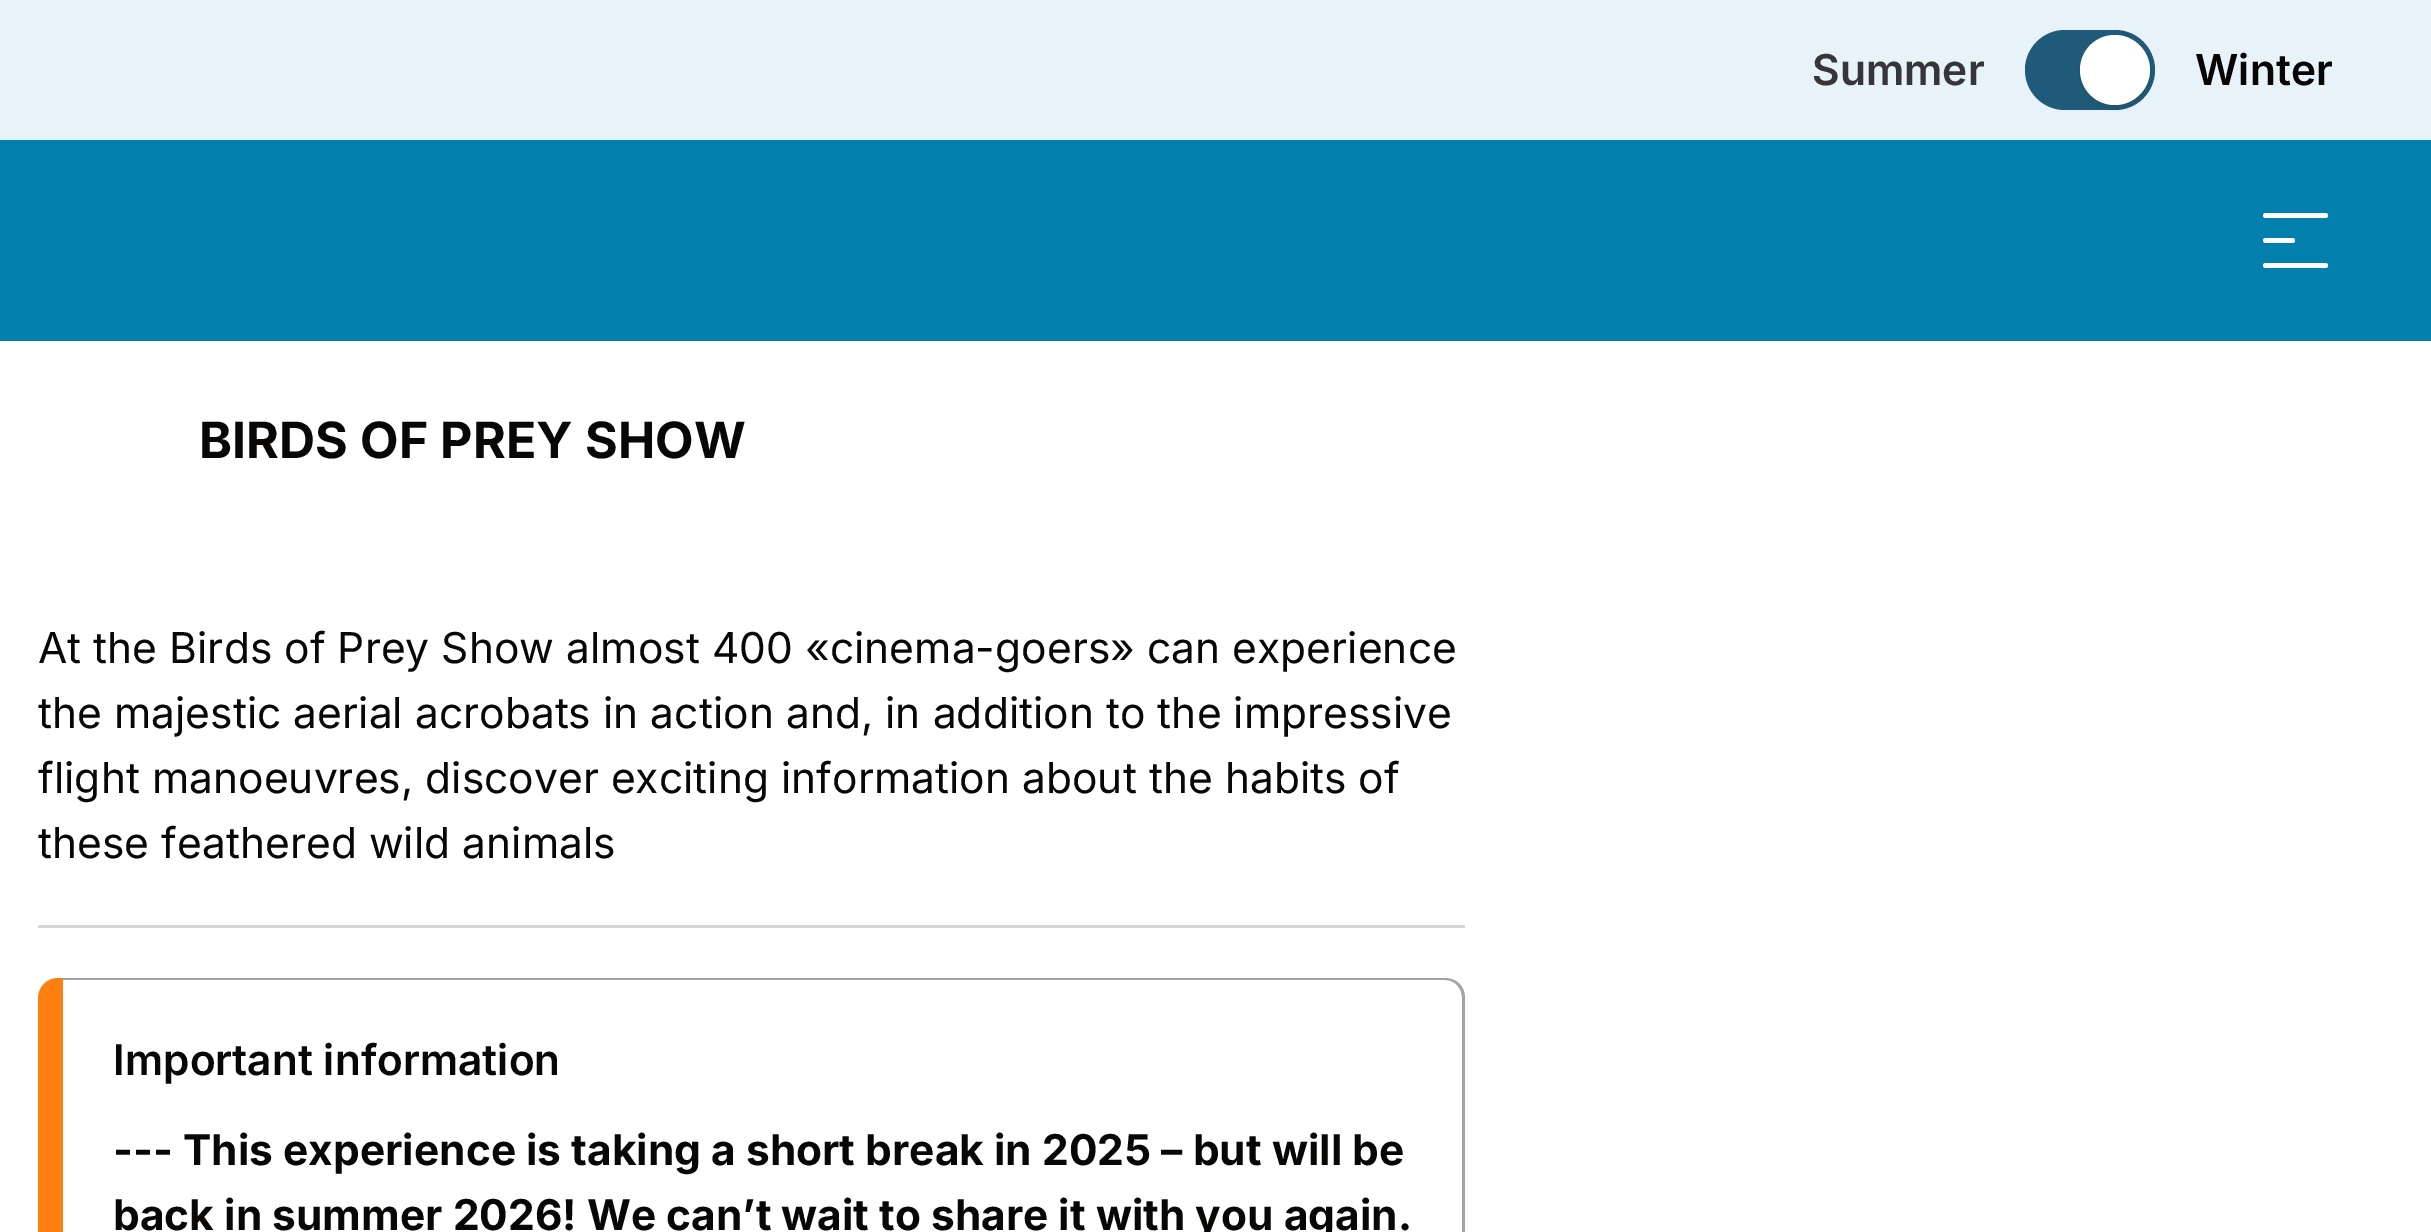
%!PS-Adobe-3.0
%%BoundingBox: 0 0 2431 1232
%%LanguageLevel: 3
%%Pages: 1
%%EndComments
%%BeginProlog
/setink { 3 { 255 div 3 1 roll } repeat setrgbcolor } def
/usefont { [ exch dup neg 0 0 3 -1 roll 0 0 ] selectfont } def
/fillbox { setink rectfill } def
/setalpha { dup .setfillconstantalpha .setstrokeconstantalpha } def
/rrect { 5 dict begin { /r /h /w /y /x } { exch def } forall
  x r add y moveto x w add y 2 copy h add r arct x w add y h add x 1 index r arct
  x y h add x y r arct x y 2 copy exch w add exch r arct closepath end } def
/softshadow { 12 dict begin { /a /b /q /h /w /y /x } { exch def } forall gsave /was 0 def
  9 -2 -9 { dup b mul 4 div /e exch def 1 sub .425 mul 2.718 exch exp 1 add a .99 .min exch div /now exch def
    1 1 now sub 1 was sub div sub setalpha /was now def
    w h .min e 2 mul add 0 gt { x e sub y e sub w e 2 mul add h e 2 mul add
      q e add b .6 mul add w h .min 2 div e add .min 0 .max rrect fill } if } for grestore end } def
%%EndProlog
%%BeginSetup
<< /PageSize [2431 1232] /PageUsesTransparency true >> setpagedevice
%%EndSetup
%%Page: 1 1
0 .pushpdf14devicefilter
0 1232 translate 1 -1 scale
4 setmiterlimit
0 0 2431 1232 255 255 255 fillbox
0 140 2431 201 2 127 172 fillbox
0 0 2431 140 232 243 249 fillbox
/Inter-SemiBold 42.5 usefont
54 53 55 setink
1812 85 moveto 0.05 0 (Summer) ashow
31 90 122 setink
2025 30 130 80 40 rrect fill
44 44 44 setink
2080 38 70 70 35 2.5 0.2 softshadow
255 255 255 setink
2115 105 moveto 2095 105 2080 89 2080 70 curveto 2080 51 2095 35 2115 35 curveto 2134 35 2150 51 2150 70 curveto 2150 89 2134 105 2115 105 curveto closepath fill
9 6 6 setink
2195 85 moveto 0.05 0 (Winter) ashow
255 255 255 setink
2263 213 65 5 2.5 rrect fill
2263 238 32 5 2.5 rrect fill
2263 263 65 5 2.5 rrect fill
/Inter-Bold 50 usefont
9 6 6 setink
199 458 moveto 0.1 0 (BIRDS OF PREY SHOW) ashow
38 925 1427 3 214 214 214 fillbox
/Inter-Regular 42.5 usefont
9 6 6 setink
38 663 moveto 0.05 0 (At the Birds of Prey Show almost 400 «cinema-goers» can experience) ashow
38 728 moveto 0.05 0 (the majestic aerial acrobats in action and, in addition to the impressive) ashow
38 793 moveto 0.05 0 (flight manoeuvres, discover exciting information about the habits of) ashow
38 858 moveto 0.05 0 (these feathered wild animals) ashow
163 163 163 setink
62 978 moveto 1445 978 lineto 1456 978 1465 986 1465 998 curveto 1465 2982 lineto 1465 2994 1456 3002 1445 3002 curveto 62 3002 lineto closepath 62 980 moveto 1445 980 lineto 1455 980 1462 988 1462 998 curveto 1462 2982 lineto 1462 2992 1455 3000 1445 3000 curveto 62 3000 lineto closepath eofill
255 127 17 setink
58 978 moveto 63 978 lineto 63 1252 lineto 58 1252 lineto 47 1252 38 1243 38 1232 curveto 38 998 lineto 38 987 47 978 58 978 curveto closepath fill
/Inter-SemiBold 42.4 usefont
9 6 6 setink
113 1075 moveto 0.05 0 (Important information) ashow
/Inter-Bold 42.4 usefont
113 1165 moveto 0.05 0 (--- This experience is taking a short break in 2025 – but will be) ashow
113 1230 moveto 0.05 0 (back in summer 2026! We can’t wait to share it with you again.) ashow
.poppdf14devicefilter showpage
%%EOF
